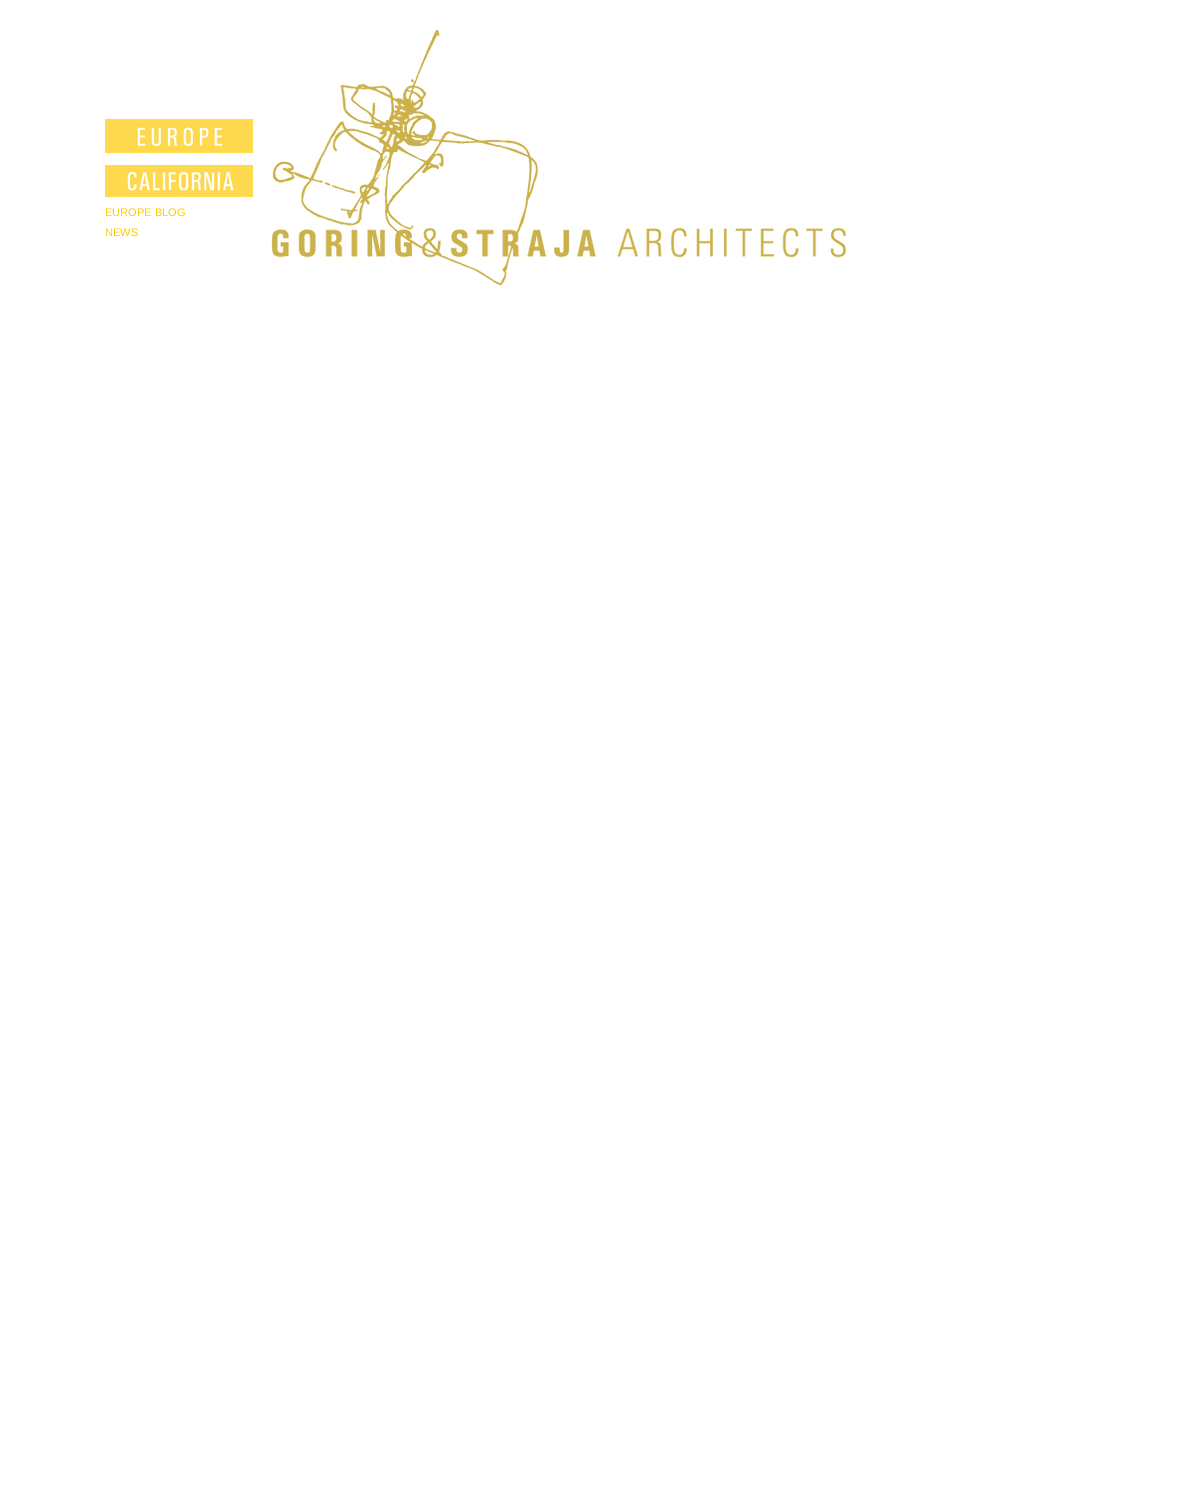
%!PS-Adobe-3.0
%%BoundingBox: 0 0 1190 1485
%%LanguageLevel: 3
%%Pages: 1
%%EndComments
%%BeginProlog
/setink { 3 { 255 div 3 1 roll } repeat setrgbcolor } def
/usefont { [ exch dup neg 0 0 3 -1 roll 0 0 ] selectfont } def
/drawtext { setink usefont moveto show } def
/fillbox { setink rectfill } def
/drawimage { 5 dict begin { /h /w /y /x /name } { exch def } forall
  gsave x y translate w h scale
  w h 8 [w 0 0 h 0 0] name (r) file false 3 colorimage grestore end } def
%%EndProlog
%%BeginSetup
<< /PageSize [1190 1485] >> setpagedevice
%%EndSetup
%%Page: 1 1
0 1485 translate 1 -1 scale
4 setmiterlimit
0 0 1190 1485 255 255 255 fillbox
(assets/img1.rgb) 105 119 148 34 drawimage
(assets/img2.rgb) 105 165 148 32 drawimage
(EUROPE BLOG) 105 216 /LiberationSans-Regular 11 255 203 5 drawtext
(NEWS) 105 236 /LiberationSans-Regular 11 255 203 5 drawtext
(assets/img3.rgb) 271 30 575 256 drawimage
showpage
%%EOF
